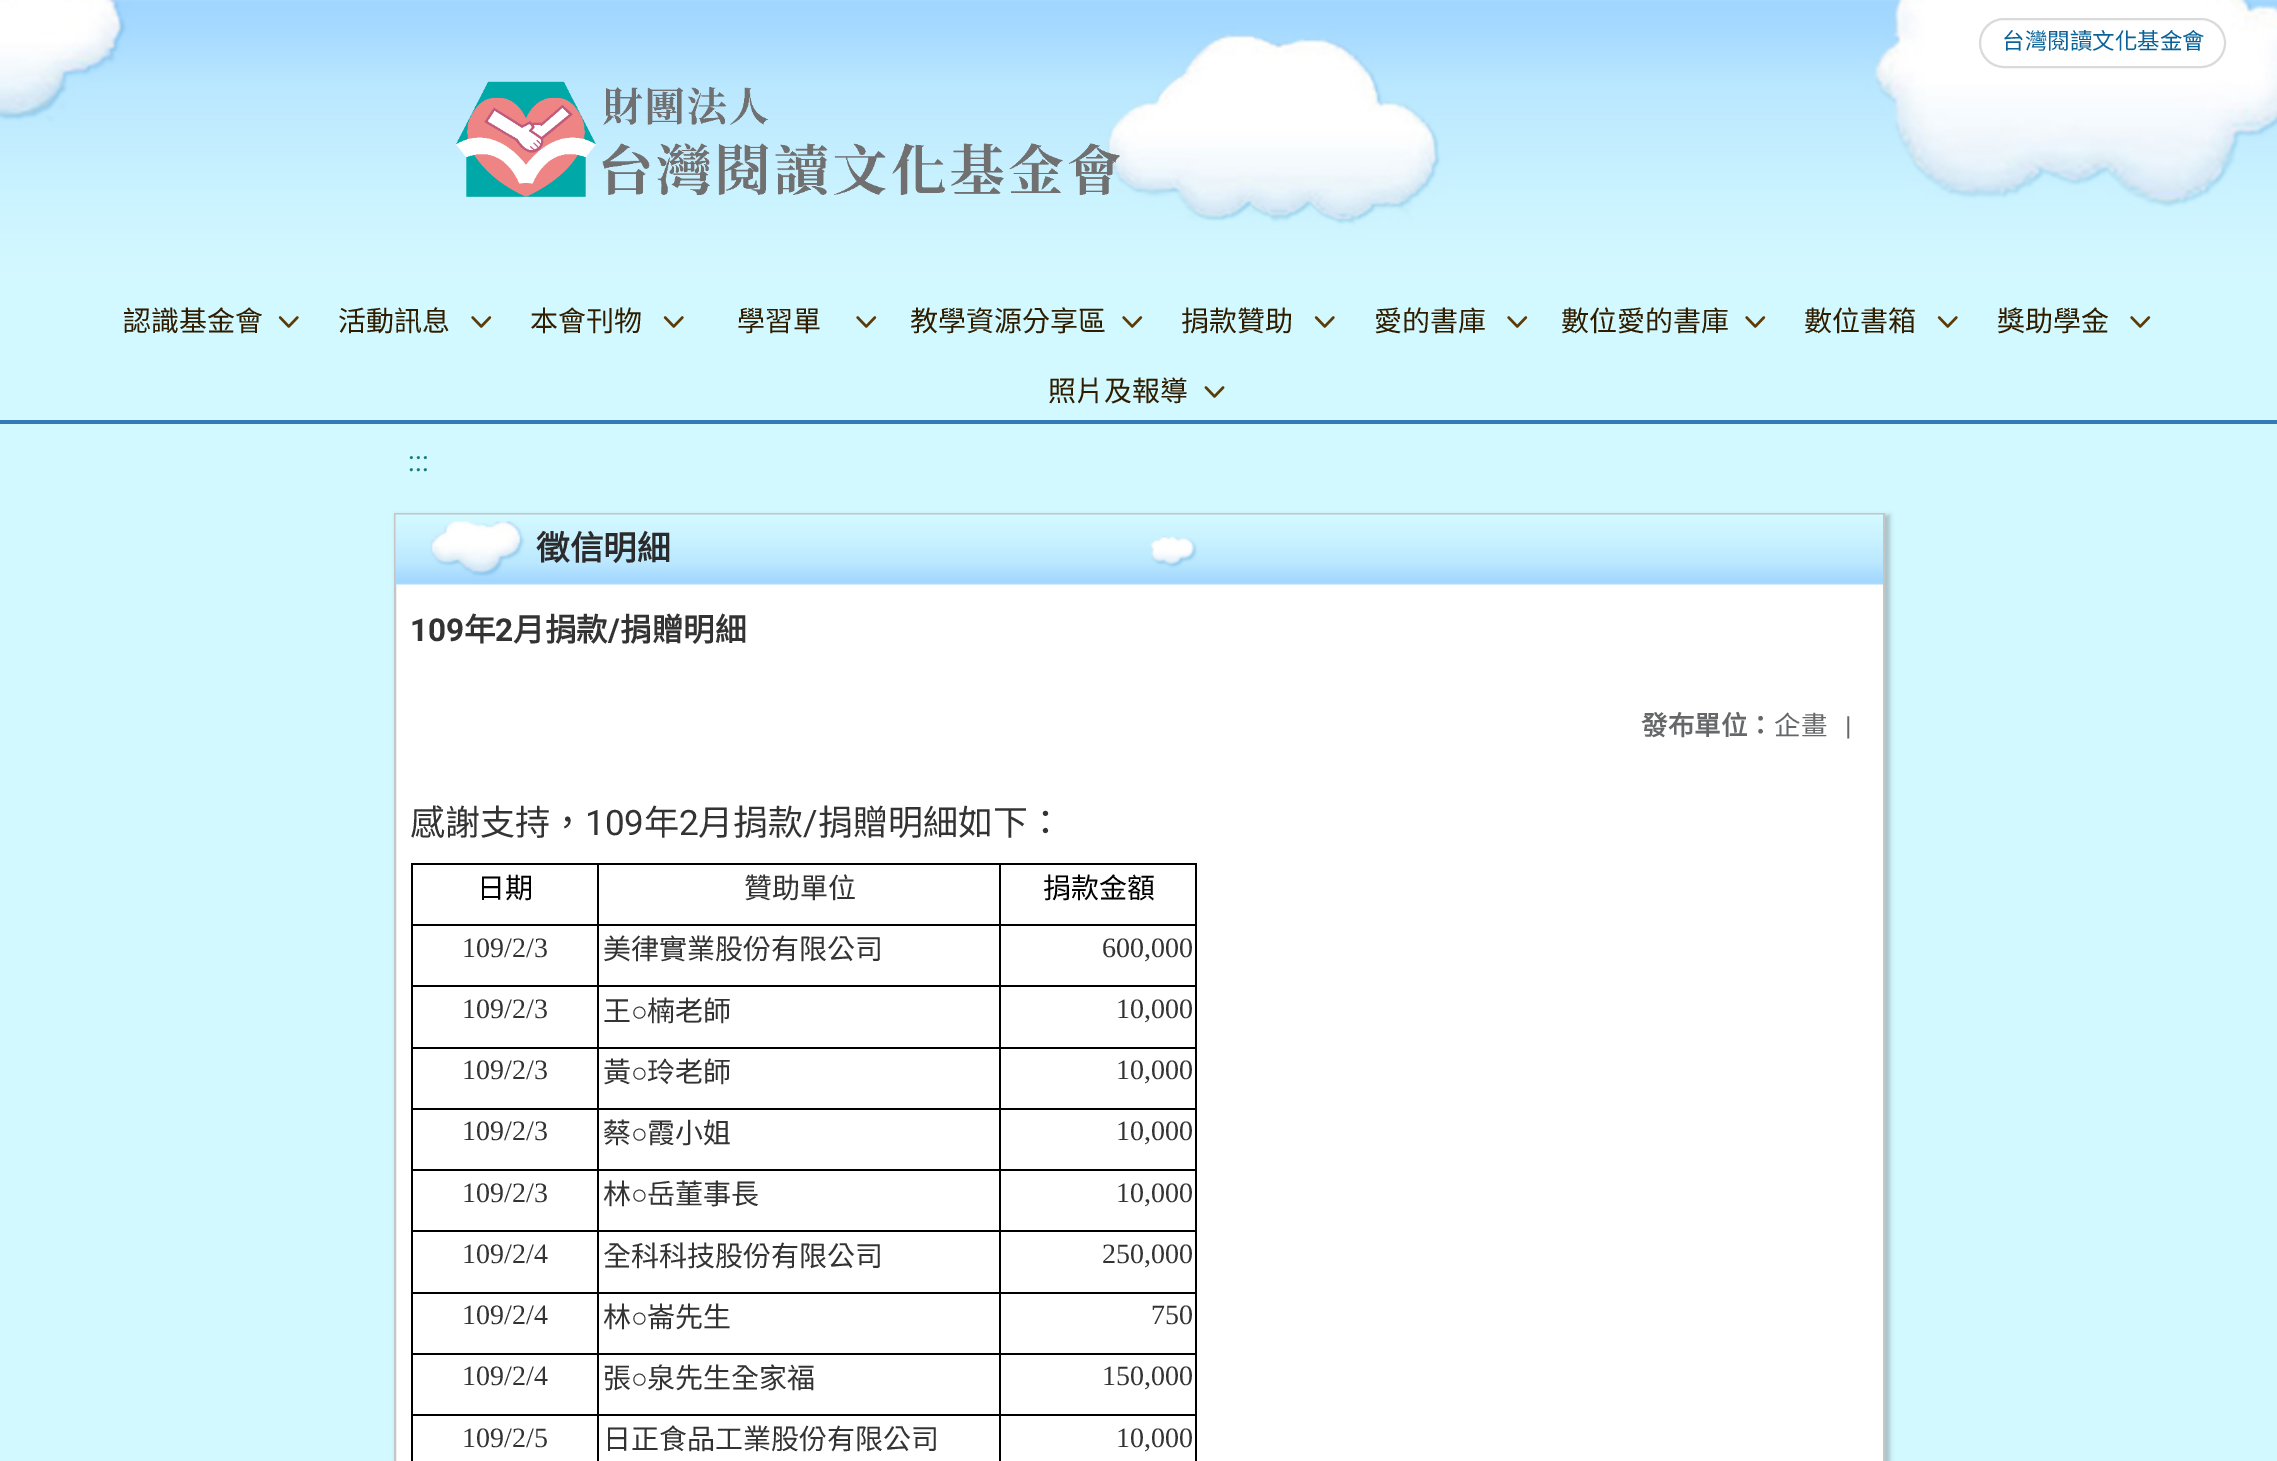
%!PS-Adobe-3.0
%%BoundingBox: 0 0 2277 1461
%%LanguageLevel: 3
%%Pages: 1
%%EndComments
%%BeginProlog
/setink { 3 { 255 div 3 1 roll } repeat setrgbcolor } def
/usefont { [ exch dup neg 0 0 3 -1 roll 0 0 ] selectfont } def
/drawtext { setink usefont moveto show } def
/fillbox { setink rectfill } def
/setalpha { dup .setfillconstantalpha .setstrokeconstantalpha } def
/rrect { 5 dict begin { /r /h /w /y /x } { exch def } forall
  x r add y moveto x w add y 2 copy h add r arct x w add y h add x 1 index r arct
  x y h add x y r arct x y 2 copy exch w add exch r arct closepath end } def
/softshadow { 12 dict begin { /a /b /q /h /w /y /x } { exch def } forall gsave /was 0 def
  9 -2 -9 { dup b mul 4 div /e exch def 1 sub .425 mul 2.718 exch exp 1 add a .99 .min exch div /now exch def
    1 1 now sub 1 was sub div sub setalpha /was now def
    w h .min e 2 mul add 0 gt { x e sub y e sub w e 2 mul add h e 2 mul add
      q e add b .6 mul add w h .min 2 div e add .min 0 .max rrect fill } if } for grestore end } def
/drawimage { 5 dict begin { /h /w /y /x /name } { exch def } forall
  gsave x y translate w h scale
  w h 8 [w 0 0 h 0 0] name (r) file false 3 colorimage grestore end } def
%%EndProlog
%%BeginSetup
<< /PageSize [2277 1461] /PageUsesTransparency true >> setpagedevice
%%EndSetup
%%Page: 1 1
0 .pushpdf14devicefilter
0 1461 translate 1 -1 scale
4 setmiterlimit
0 0 2277 1461 210 249 255 fillbox
(assets/img1.rgb) 0 0 2277 280 drawimage
(assets/img2.rgb) 456 81 664 116 drawimage
218 218 218 setink
2 setlinewidth
1980 19 245 48 24 rrect stroke
(台灣閱讀文化基金會) 2002 49 /NotoSansCJKTC-Regular 22.5 10 99 152 drawtext
0 420 2277 4 51 122 183 fillbox
(認識基金會) 123 331 /NotoSansCJKTC-Regular 28 48 29 0 drawtext
(assets/img3.rgb) 278 316 21 12 drawimage
(活動訊息) 338 331 /NotoSansCJKTC-Regular 28 48 29 0 drawtext
(assets/img4.rgb) 471 316 21 12 drawimage
(本會刊物) 530 331 /NotoSansCJKTC-Regular 28 48 29 0 drawtext
(assets/img3.rgb) 663 316 21 12 drawimage
(學習單) 737 331 /NotoSansCJKTC-Regular 28 48 29 0 drawtext
(assets/img4.rgb) 856 316 21 12 drawimage
(教學資源分享區) 910 331 /NotoSansCJKTC-Regular 28 48 29 0 drawtext
(assets/img4.rgb) 1122 316 21 12 drawimage
(捐款贊助) 1181 331 /NotoSansCJKTC-Regular 28 48 29 0 drawtext
(assets/img3.rgb) 1314 316 21 12 drawimage
(愛的書庫) 1374 331 /NotoSansCJKTC-Regular 28 48 29 0 drawtext
(assets/img4.rgb) 1507 316 21 12 drawimage
(數位愛的書庫) 1561 331 /NotoSansCJKTC-Regular 28 48 29 0 drawtext
(assets/img4.rgb) 1745 316 21 12 drawimage
(數位書箱) 1804 331 /NotoSansCJKTC-Regular 28 48 29 0 drawtext
(assets/img3.rgb) 1937 316 21 12 drawimage
(獎助學金) 1997 331 /NotoSansCJKTC-Regular 28 48 29 0 drawtext
(assets/img4.rgb) 2130 316 21 12 drawimage
(照片及報導) 1048 401 /NotoSansCJKTC-Regular 28 48 29 0 drawtext
(assets/img5.rgb) 1204 386 21 12 drawimage
(:::) 408 471 /Roboto-Regular 28 23 125 121 drawtext
0 0 0 setink
396 515 1494 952 0 2 0.2 softshadow
255 255 255 setink
395 514 moveto 1884 514 lineto 1884 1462 lineto 395 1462 lineto closepath gsave fill grestore
197 197 197 setink
stroke
(assets/img6.rgb) 395 514 1488 71 drawimage
(徵信明細) 536 560 /NotoSansCJKTC-Bold 33.5 43 43 43 drawtext
(109) 410 641 /Roboto-Bold 31.5 51 51 51 drawtext
(年) 464 641 /NotoSansCJKTC-Bold 31.5 51 51 51 drawtext
(2) 495 641 /Roboto-Bold 31.5 51 51 51 drawtext
(月捐款) 513 641 /NotoSansCJKTC-Bold 31.5 51 51 51 drawtext
(/) 608 641 /Roboto-Bold 31.5 51 51 51 drawtext
(捐贈明細) 620 641 /NotoSansCJKTC-Bold 31.5 51 51 51 drawtext
(發布單位：) 1641 735 /NotoSansCJKTC-Bold 26.5 101 103 105 drawtext
(企畫) 1774 735 /NotoSansCJKTC-Regular 26.5 101 103 105 drawtext
(|) 1845 735 /Roboto-Regular 26.5 101 103 105 drawtext
(感謝支持，) 410 835 /NotoSansCJKTC-Regular 35 51 51 51 drawtext
(109) 585 835 /Roboto-Regular 35 51 51 51 drawtext
(年) 644 835 /NotoSansCJKTC-Regular 35 51 51 51 drawtext
(2) 679 835 /Roboto-Regular 35 51 51 51 drawtext
(月捐款) 698 835 /NotoSansCJKTC-Regular 35 51 51 51 drawtext
(/) 803 835 /Roboto-Regular 35 51 51 51 drawtext
(捐贈明細如下：) 818 835 /NotoSansCJKTC-Regular 35 51 51 51 drawtext
597 863 600 2 0 0 0 fillbox
1195 863 2 598 0 0 0 fillbox
411 863 2 598 0 0 0 fillbox
411 863 188 2 0 0 0 fillbox
999 1230 198 2 0 0 0 fillbox
999 1414 2 47 0 0 0 fillbox
999 1414 198 2 0 0 0 fillbox
999 1353 2 63 0 0 0 fillbox
999 1353 198 2 0 0 0 fillbox
999 1292 2 63 0 0 0 fillbox
999 1292 198 2 0 0 0 fillbox
999 1169 2 124 0 0 0 fillbox
999 1169 198 2 0 0 0 fillbox
999 1108 2 63 0 0 0 fillbox
999 1108 198 2 0 0 0 fillbox
999 1047 2 63 0 0 0 fillbox
999 1047 198 2 0 0 0 fillbox
999 985 2 63 0 0 0 fillbox
999 985 198 2 0 0 0 fillbox
999 924 2 63 0 0 0 fillbox
999 924 198 2 0 0 0 fillbox
999 863 2 63 0 0 0 fillbox
597 1414 2 47 0 0 0 fillbox
597 1414 404 2 0 0 0 fillbox
597 1353 2 63 0 0 0 fillbox
597 1353 404 2 0 0 0 fillbox
597 1292 2 63 0 0 0 fillbox
597 1292 404 2 0 0 0 fillbox
597 1230 2 63 0 0 0 fillbox
597 1230 404 2 0 0 0 fillbox
597 1169 2 63 0 0 0 fillbox
597 1169 404 2 0 0 0 fillbox
597 1108 2 63 0 0 0 fillbox
597 1108 404 2 0 0 0 fillbox
597 1047 2 63 0 0 0 fillbox
597 1047 404 2 0 0 0 fillbox
597 985 2 63 0 0 0 fillbox
597 985 404 2 0 0 0 fillbox
597 924 2 63 0 0 0 fillbox
597 924 404 2 0 0 0 fillbox
597 863 2 63 0 0 0 fillbox
411 924 188 2 0 0 0 fillbox
(日期) 477 898 /NotoSansCJKTC-Regular 28 0 0 0 drawtext
(贊助單位) 744 898 /NotoSansCJKTC-Regular 28 51 51 51 drawtext
(捐款金額) 1043 898 /NotoSansCJKTC-Regular 28 0 0 0 drawtext
411 985 188 2 0 0 0 fillbox
(109/2/3) 462 957 /LiberationSerif-Regular 28 51 51 51 drawtext
(美律實業股份有限公司) 603 959 /NotoSansCJKTC-Regular 28 51 51 51 drawtext
(600,000) 1102 957 /LiberationSerif-Regular 28 51 51 51 drawtext
411 1047 188 2 0 0 0 fillbox
(109/2/3) 462 1018 /LiberationSerif-Regular 28 51 51 51 drawtext
(王) 603 1021 /NotoSansCJKTC-Regular 28 51 51 51 drawtext
(○) 631 1021 /LiberationSerif-Regular 28 51 51 51 drawtext
(楠老師) 647 1021 /NotoSansCJKTC-Regular 28 51 51 51 drawtext
(10,000) 1116 1018 /LiberationSerif-Regular 28 51 51 51 drawtext
411 1108 188 2 0 0 0 fillbox
(109/2/3) 462 1079 /LiberationSerif-Regular 28 51 51 51 drawtext
(黃) 603 1082 /NotoSansCJKTC-Regular 28 51 51 51 drawtext
(○) 631 1082 /LiberationSerif-Regular 28 51 51 51 drawtext
(玲老師) 647 1082 /NotoSansCJKTC-Regular 28 51 51 51 drawtext
(10,000) 1116 1079 /LiberationSerif-Regular 28 51 51 51 drawtext
411 1169 188 2 0 0 0 fillbox
(109/2/3) 462 1140 /LiberationSerif-Regular 28 51 51 51 drawtext
(蔡) 603 1143 /NotoSansCJKTC-Regular 28 51 51 51 drawtext
(○) 631 1143 /LiberationSerif-Regular 28 51 51 51 drawtext
(霞小姐) 647 1143 /NotoSansCJKTC-Regular 28 51 51 51 drawtext
(10,000) 1116 1140 /LiberationSerif-Regular 28 51 51 51 drawtext
411 1230 188 2 0 0 0 fillbox
(109/2/3) 462 1202 /LiberationSerif-Regular 28 51 51 51 drawtext
(林) 603 1204 /NotoSansCJKTC-Regular 28 51 51 51 drawtext
(○) 631 1204 /LiberationSerif-Regular 28 51 51 51 drawtext
(岳董事長) 647 1204 /NotoSansCJKTC-Regular 28 51 51 51 drawtext
(10,000) 1116 1202 /LiberationSerif-Regular 28 51 51 51 drawtext
411 1292 188 2 0 0 0 fillbox
(109/2/4) 462 1263 /LiberationSerif-Regular 28 51 51 51 drawtext
(全科科技股份有限公司) 603 1266 /NotoSansCJKTC-Regular 28 51 51 51 drawtext
(250,000) 1102 1263 /LiberationSerif-Regular 28 51 51 51 drawtext
411 1353 188 2 0 0 0 fillbox
(109/2/4) 462 1324 /LiberationSerif-Regular 28 51 51 51 drawtext
(林) 603 1327 /NotoSansCJKTC-Regular 28 51 51 51 drawtext
(○) 631 1327 /LiberationSerif-Regular 28 51 51 51 drawtext
(崙先生) 647 1327 /NotoSansCJKTC-Regular 28 51 51 51 drawtext
(750) 1151 1324 /LiberationSerif-Regular 28 51 51 51 drawtext
411 1414 188 2 0 0 0 fillbox
(109/2/4) 462 1385 /LiberationSerif-Regular 28 51 51 51 drawtext
(張) 603 1388 /NotoSansCJKTC-Regular 28 51 51 51 drawtext
(○) 631 1388 /LiberationSerif-Regular 28 51 51 51 drawtext
(泉先生全家福) 647 1388 /NotoSansCJKTC-Regular 28 51 51 51 drawtext
(150,000) 1102 1385 /LiberationSerif-Regular 28 51 51 51 drawtext
(109/2/5) 462 1447 /LiberationSerif-Regular 28 51 51 51 drawtext
(日正食品工業股份有限公司) 603 1449 /NotoSansCJKTC-Regular 28 51 51 51 drawtext
(10,000) 1116 1447 /LiberationSerif-Regular 28 51 51 51 drawtext
.poppdf14devicefilter showpage
%%EOF
